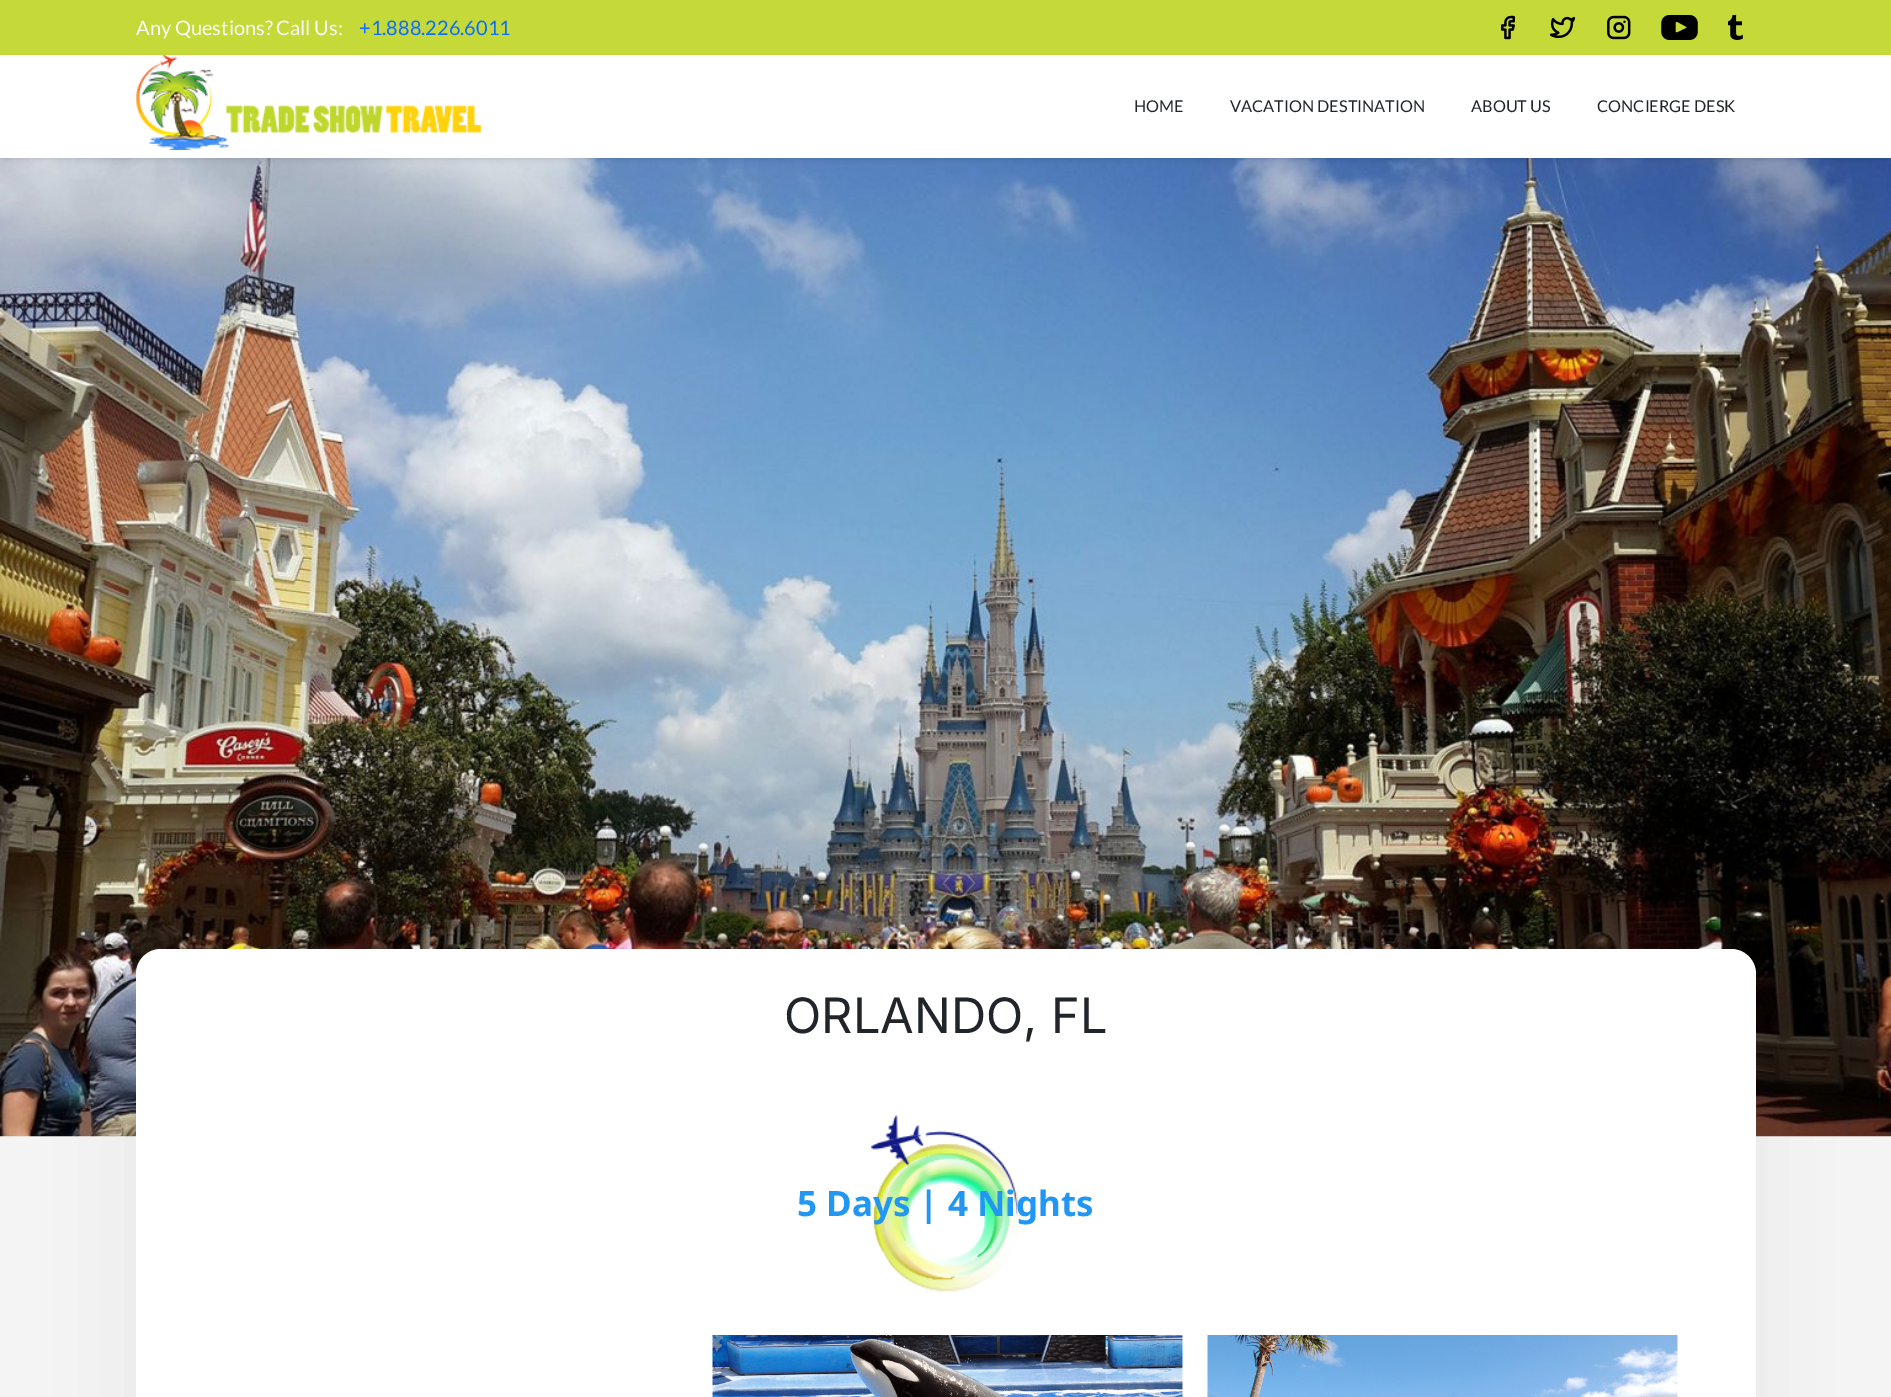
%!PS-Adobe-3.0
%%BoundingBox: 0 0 1891 1397
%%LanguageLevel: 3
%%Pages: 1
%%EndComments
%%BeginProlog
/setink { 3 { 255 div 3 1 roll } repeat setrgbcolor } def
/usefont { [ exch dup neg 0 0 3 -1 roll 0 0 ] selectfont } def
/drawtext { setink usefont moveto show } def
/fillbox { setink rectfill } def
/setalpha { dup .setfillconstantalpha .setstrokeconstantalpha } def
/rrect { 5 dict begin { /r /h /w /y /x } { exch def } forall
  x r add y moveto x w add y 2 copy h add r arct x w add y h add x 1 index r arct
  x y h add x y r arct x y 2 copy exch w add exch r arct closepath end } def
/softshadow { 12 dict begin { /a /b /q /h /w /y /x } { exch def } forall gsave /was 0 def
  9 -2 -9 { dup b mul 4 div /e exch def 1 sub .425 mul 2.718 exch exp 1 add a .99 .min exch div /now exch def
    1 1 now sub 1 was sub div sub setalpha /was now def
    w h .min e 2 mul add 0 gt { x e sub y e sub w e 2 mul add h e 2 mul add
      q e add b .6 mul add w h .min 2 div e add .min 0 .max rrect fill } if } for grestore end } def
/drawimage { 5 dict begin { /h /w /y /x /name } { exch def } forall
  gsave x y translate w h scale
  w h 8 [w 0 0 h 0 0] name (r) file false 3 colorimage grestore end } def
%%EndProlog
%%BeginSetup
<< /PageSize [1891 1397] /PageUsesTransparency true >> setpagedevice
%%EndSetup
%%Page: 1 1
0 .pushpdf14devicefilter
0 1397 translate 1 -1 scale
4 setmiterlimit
0 0 1891 1397 244 244 244 fillbox
0 0 1891 55 197 217 57 fillbox
(Any Questions? Call Us:) 136 35 /Lato-Regular 20 248 249 250 drawtext
(+1.888.226.6011) 359 35 /Lato-Regular 20 13 110 253 drawtext
(assets/img1.rgb) 1501 15 14 25 drawimage
(assets/img2.rgb) 1550 16 25 23 drawimage
(assets/img3.rgb) 1607 15 24 25 drawimage
(assets/img4.rgb) 1661 15 37 25 drawimage
(assets/img5.rgb) 1728 15 15 25 drawimage
(assets/img7.rgb) 0 158 1891 979 drawimage
0 0 0 setink
6 64 1879 90 0 4.5 0.5 softshadow
0 55 1891 103 255 255 255 fillbox
(assets/img6.rgb) 136 55 345 95 drawimage
(HOME) 1134 112 /Lato-Regular 16.25 33 37 41 drawtext
(VACATION DESTINATION) 1230 112 /Lato-Regular 16.25 33 37 41 drawtext
(ABOUT US) 1471 112 /Lato-Regular 16.25 33 37 41 drawtext
(CONCIERGE DESK) 1597 112 /Lato-Regular 16.25 33 37 41 drawtext
0 0 0 setink
136 954 1620 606 25 46 0.06 softshadow
255 255 255 setink
136 949 1620 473 25 rrect fill
(ORLANDO, FL) 784 1033 /Inter-Regular 48.75 33 37 41 drawtext
(assets/img8.rgb) 871 1115 151 177 drawimage
(5 Days | 4 Nights) 797 1216 /NotoSans-Bold 35 33 150 243 drawtext
(assets/img9.rgb) 712 1335 471 62 drawimage
(assets/img10.rgb) 1207 1335 471 62 drawimage
.poppdf14devicefilter showpage
%%EOF
